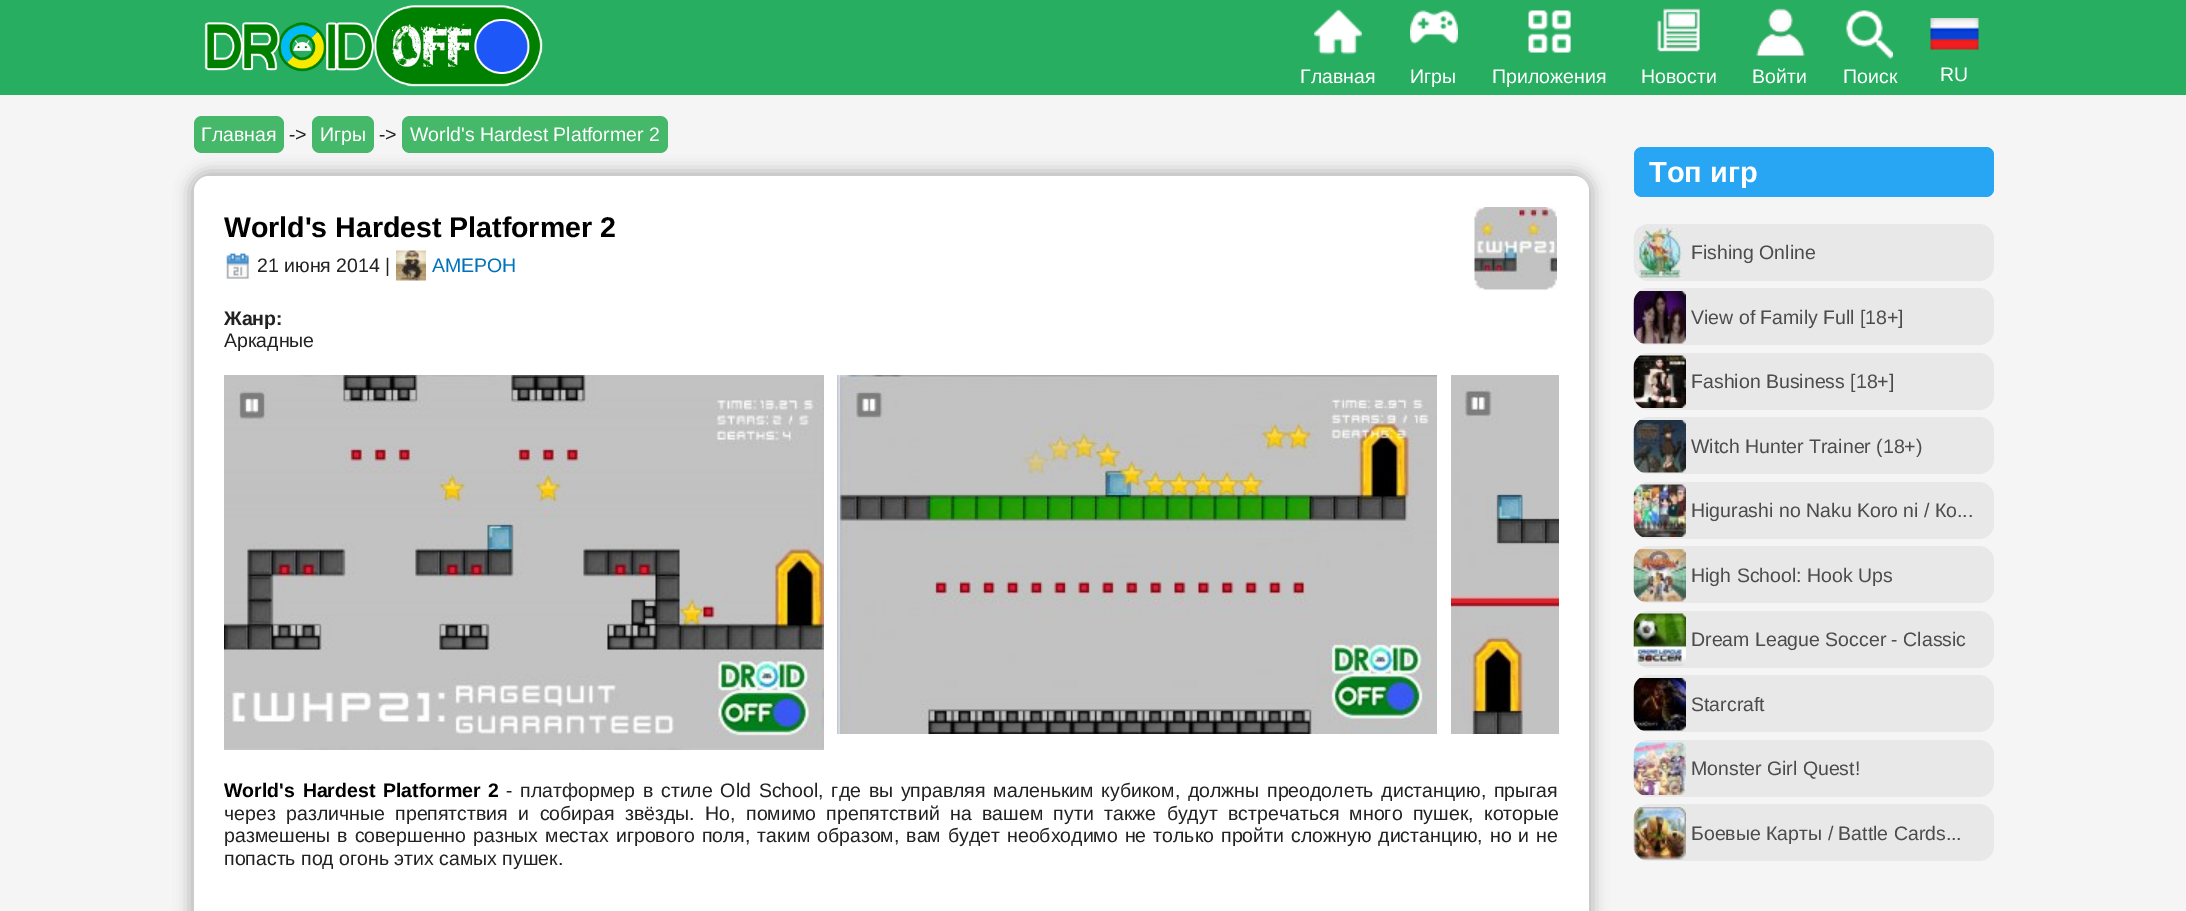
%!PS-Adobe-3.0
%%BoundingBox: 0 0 2186 911
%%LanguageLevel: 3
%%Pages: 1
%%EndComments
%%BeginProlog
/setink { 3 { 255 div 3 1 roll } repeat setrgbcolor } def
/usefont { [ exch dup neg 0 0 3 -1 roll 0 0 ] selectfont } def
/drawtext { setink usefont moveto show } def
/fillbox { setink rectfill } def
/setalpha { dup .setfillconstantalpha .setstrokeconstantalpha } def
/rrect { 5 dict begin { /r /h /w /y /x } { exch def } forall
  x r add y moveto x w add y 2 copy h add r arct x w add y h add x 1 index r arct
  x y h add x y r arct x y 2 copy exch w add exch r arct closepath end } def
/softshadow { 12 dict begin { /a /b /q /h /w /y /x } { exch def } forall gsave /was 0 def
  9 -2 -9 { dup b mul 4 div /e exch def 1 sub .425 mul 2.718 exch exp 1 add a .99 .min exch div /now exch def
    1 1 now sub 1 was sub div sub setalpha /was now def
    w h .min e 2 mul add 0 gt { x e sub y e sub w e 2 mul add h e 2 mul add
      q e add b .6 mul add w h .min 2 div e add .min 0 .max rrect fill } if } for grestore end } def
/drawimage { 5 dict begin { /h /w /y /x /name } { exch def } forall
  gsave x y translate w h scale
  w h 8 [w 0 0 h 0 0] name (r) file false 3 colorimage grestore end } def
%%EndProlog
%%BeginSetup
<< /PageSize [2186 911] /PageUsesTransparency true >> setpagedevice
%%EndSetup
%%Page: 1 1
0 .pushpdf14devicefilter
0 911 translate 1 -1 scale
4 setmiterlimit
0 0 2186 911 245 245 245 fillbox
0 0 2186 95 39 174 96 fillbox
(assets/img1.rgb) 204 5 339 82 drawimage
(assets/img2.rgb) 1314 9 48 46 drawimage
(Главная) 1300 83 /LiberationSans-Regular 19.5 255 255 255 drawtext
(assets/img3.rgb) 1410 10 48 34 drawimage
(Игры) 1410 83 /LiberationSans-Regular 19.5 255 255 255 drawtext
(assets/img4.rgb) 1528 10 43 43 drawimage
(Приложения) 1492 83 /LiberationSans-Regular 19.5 255 255 255 drawtext
(assets/img5.rgb) 1657 8 44 45 drawimage
(Новости) 1641 83 /LiberationSans-Regular 19.5 255 255 255 drawtext
(assets/img6.rgb) 1756 8 49 49 drawimage
(Войти) 1752 83 /LiberationSans-Regular 19.5 255 255 255 drawtext
(assets/img7.rgb) 1846 10 47 49 drawimage
(Поиск) 1843 83 /LiberationSans-Regular 19.5 255 255 255 drawtext
(assets/img8.rgb) 1930 18 49 32 drawimage
(RU) 1940 81 /LiberationSans-Regular 19.5 255 255 255 drawtext
122 122 122 setink
189 171 1404 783 20 7.5 0.5 softshadow
69 184 106 setink
194 116 90 37 8 rrect fill
(Главная) 201 141 /LiberationSans-Regular 19.5 255 255 255 drawtext
(->) 289 141 /LiberationSans-Regular 19.5 34 34 34 drawtext
69 184 106 setink
312 116 62 37 8 rrect fill
(Игры) 320 141 /LiberationSans-Regular 19.5 255 255 255 drawtext
(->) 379 141 /LiberationSans-Regular 19.5 34 34 34 drawtext
69 184 106 setink
402 116 266 37 8 rrect fill
(World's Hardest Platformer 2) 410 141 /LiberationSans-Regular 19.5 255 255 255 drawtext
194 176 1395 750 15 rrect fill
(World's Hardest Platformer 2) 224 237 /LiberationSans-Bold 28.5 0 0 0 drawtext
(assets/img9.rgb) 1474 207 83 83 drawimage
(assets/img10.rgb) 226 253 23 26 drawimage
(21 июня 2014 |) 257 272 /LiberationSans-Regular 19.5 34 34 34 drawtext
(assets/img11.rgb) 396 250 30 31 drawimage
(AMEPOH) 432 272 /LiberationSans-Regular 19.5 0 114 188 drawtext
(Жанр:) 224 325 /LiberationSans-Bold 19.5 34 34 34 drawtext
(Аркадные) 224 347 /LiberationSans-Regular 19.5 34 34 34 drawtext
(assets/img12.rgb) 224 375 600 375 drawimage
(assets/img13.rgb) 837 375 600 359 drawimage
(assets/img14.rgb) 1451 375 108 359 drawimage
/LiberationSans-Bold 19.5 usefont
0 0 0 setink
224 797 moveto 2.4 0 32 (World's Hardest Platformer 2) widthshow
/LiberationSans-Regular 19.5 usefont
34 34 34 setink
506 797 moveto 2.4 0 32 (- платформер в стиле Old School, где вы управляя маленьким кубиком, должны преодолеть дистанцию, прыгая) widthshow
224 820 moveto 5 0 32 (через различные препятствия и собирая звёзды. Но, помимо препятствий на вашем пути также будут встречаться много пушек, которые) widthshow
224 842 moveto 1.6 0 32 (размешены в совершенно разных местах игрового поля, таким образом, вам будет необходимо не только пройти сложную дистанцию, но и не) widthshow
(попасть под огонь этих самых пушек.) 224 865 /LiberationSans-Regular 19.5 34 34 34 drawtext
40 166 243 setink
1634 147 360 50 8 rrect fill
(Топ игр) 1649 182 /LiberationSans-Bold 29 255 255 255 drawtext
232 232 232 setink
1634 224 360 57 15 rrect fill
(assets/img15.rgb) 1633 226 50 53 drawimage
(Fishing Online) 1691 259 /LiberationSans-Regular 19.5 77 75 75 drawtext
232 232 232 setink
1634 288 360 57 15 rrect fill
(assets/img16.rgb) 1633 291 53 53 drawimage
(View of Family Full [18+]) 1691 324 /LiberationSans-Regular 19.5 77 75 75 drawtext
232 232 232 setink
1634 353 360 57 15 rrect fill
(assets/img17.rgb) 1633 355 53 53 drawimage
(Fashion Business [18+]) 1691 388 /LiberationSans-Regular 19.5 77 75 75 drawtext
232 232 232 setink
1634 417 360 57 15 rrect fill
(assets/img18.rgb) 1633 420 53 53 drawimage
(Witch Hunter Trainer \(18+\)) 1691 453 /LiberationSans-Regular 19.5 77 75 75 drawtext
232 232 232 setink
1634 482 360 57 15 rrect fill
(assets/img19.rgb) 1633 484 53 53 drawimage
(Higurashi no Naku Koro ni / Ко...) 1691 517 /LiberationSans-Regular 19.5 77 75 75 drawtext
232 232 232 setink
1634 546 360 57 15 rrect fill
(assets/img20.rgb) 1633 549 53 53 drawimage
(High School: Hook Ups) 1691 582 /LiberationSans-Regular 19.5 77 75 75 drawtext
232 232 232 setink
1634 611 360 57 15 rrect fill
(assets/img21.rgb) 1633 613 53 53 drawimage
(Dream League Soccer - Classic) 1691 646 /LiberationSans-Regular 19.5 77 75 75 drawtext
232 232 232 setink
1634 675 360 57 15 rrect fill
(assets/img22.rgb) 1633 678 53 53 drawimage
(Starcraft) 1691 711 /LiberationSans-Regular 19.5 77 75 75 drawtext
232 232 232 setink
1634 740 360 57 15 rrect fill
(assets/img23.rgb) 1633 742 53 53 drawimage
(Monster Girl Quest!) 1691 775 /LiberationSans-Regular 19.5 77 75 75 drawtext
232 232 232 setink
1634 804 360 57 15 rrect fill
(assets/img24.rgb) 1633 807 53 53 drawimage
(Боевые Карты / Battle Cards...) 1691 840 /LiberationSans-Regular 19.5 77 75 75 drawtext
.poppdf14devicefilter showpage
%%EOF
